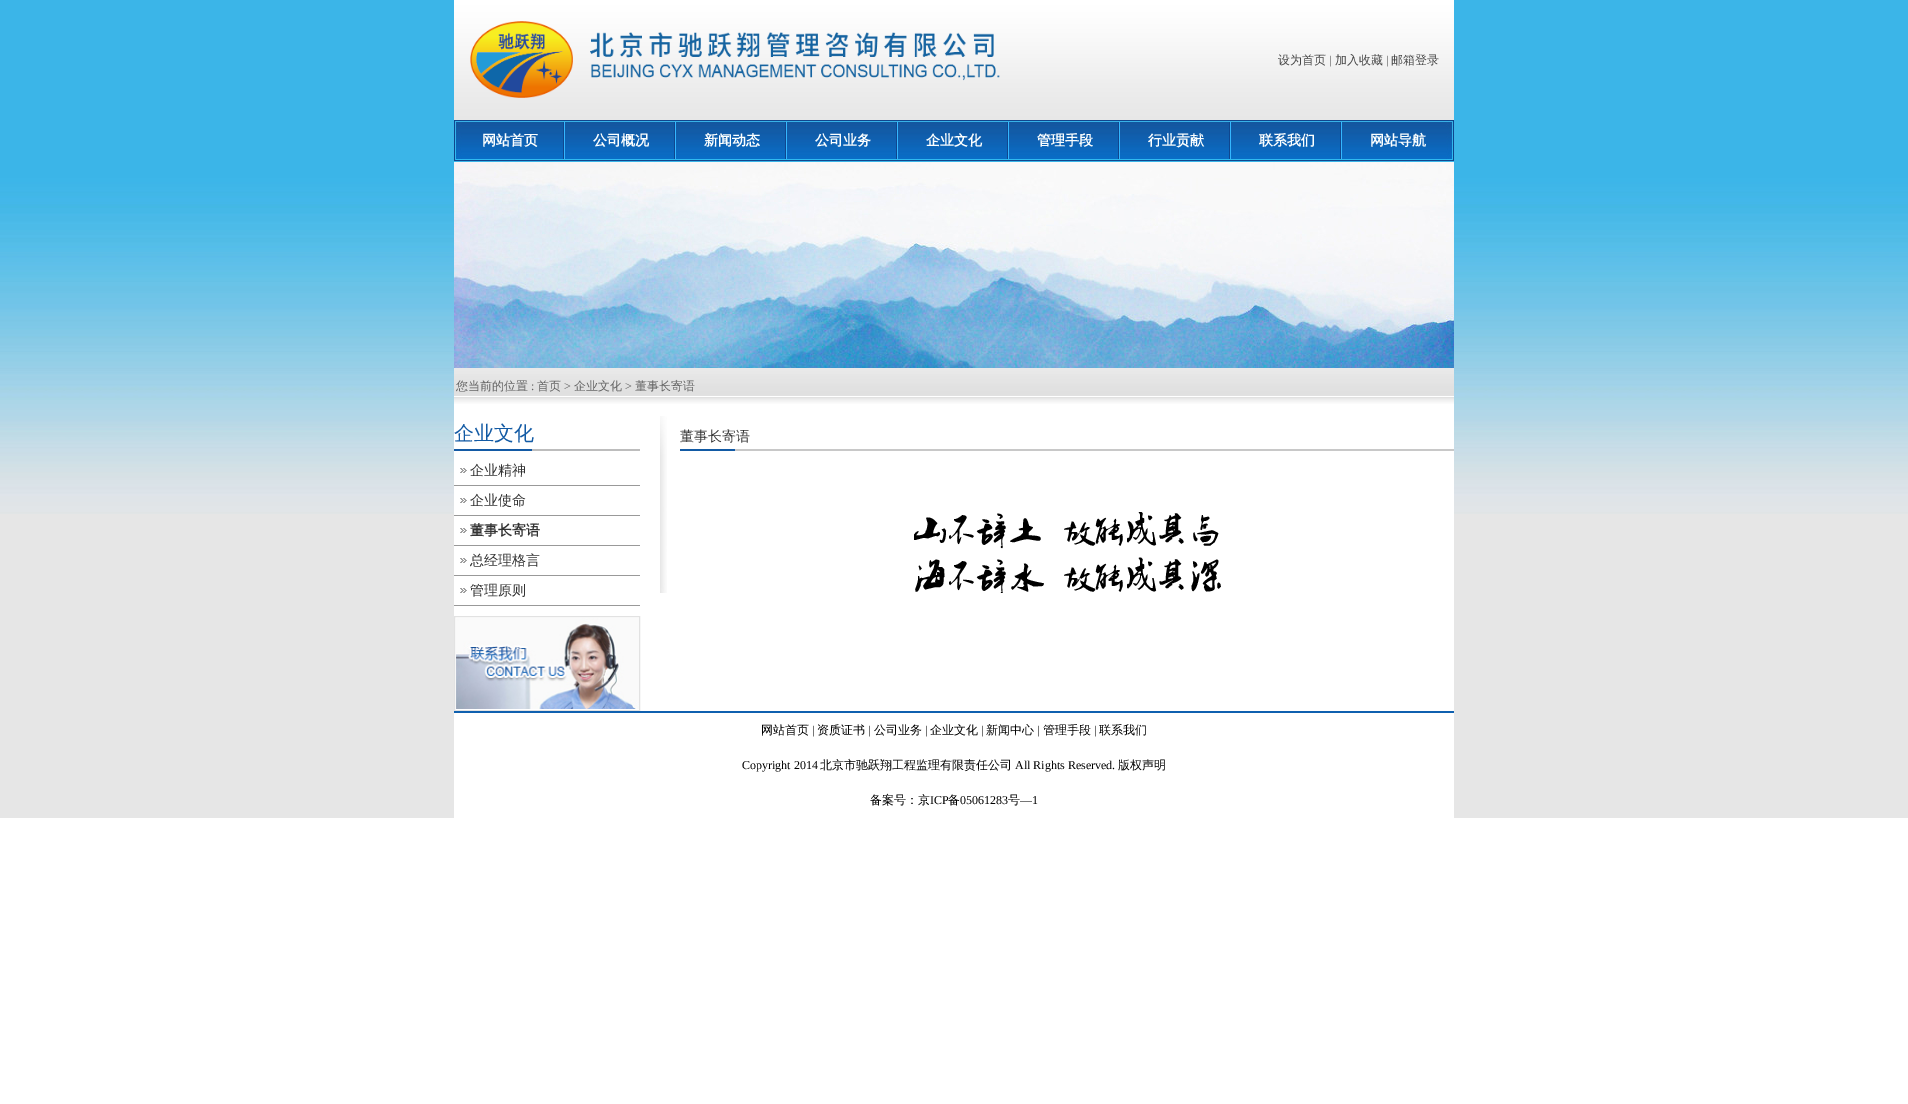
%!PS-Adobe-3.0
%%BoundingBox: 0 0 1908 1104
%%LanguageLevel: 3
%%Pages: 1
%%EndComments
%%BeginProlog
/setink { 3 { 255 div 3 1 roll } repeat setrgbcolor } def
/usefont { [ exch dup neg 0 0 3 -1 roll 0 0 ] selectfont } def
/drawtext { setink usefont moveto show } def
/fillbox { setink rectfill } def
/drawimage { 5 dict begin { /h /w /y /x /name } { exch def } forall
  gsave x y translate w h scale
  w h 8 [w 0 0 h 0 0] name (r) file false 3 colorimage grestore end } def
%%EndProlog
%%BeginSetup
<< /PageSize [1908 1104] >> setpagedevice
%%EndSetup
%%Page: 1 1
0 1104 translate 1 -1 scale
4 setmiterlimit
0 0 1908 1104 255 255 255 fillbox
0 514 1908 304 230 230 230 fillbox
(assets/img1.rgb) 0 0 1908 514 drawimage
(assets/img2.rgb) 454 0 1000 120 drawimage
(assets/img3.rgb) 470 21 530 77 drawimage
(设为首页) 1278 64 /WenQuanYiZenHei-Medium 12 71 71 71 drawtext
(|) 1329 64 /LiberationSerif-Regular 12 71 71 71 drawtext
(加入收藏) 1335 64 /WenQuanYiZenHei-Medium 12 71 71 71 drawtext
(|) 1386 64 /LiberationSerif-Regular 12 71 71 71 drawtext
(邮箱登录) 1391 64 /WenQuanYiZenHei-Medium 12 71 71 71 drawtext
(assets/img4.rgb) 454 120 1000 41 drawimage
(assets/img5.rgb) 563 122 2 37 drawimage
(网站首页) 482 145 /WenQuanYiZenHei-Bold 14 252 255 255 drawtext
(assets/img5.rgb) 674 122 2 37 drawimage
(公司概况) 593 145 /WenQuanYiZenHei-Bold 14 252 255 255 drawtext
(assets/img5.rgb) 785 122 2 37 drawimage
(新闻动态) 704 145 /WenQuanYiZenHei-Bold 14 252 255 255 drawtext
(assets/img5.rgb) 896 122 2 37 drawimage
(公司业务) 815 145 /WenQuanYiZenHei-Bold 14 252 255 255 drawtext
(assets/img5.rgb) 1007 122 2 37 drawimage
(企业文化) 926 145 /WenQuanYiZenHei-Bold 14 252 255 255 drawtext
(assets/img5.rgb) 1118 122 2 37 drawimage
(管理手段) 1037 145 /WenQuanYiZenHei-Bold 14 252 255 255 drawtext
(assets/img5.rgb) 1229 122 2 37 drawimage
(行业贡献) 1148 145 /WenQuanYiZenHei-Bold 14 252 255 255 drawtext
(assets/img5.rgb) 1340 122 2 37 drawimage
(联系我们) 1259 145 /WenQuanYiZenHei-Bold 14 252 255 255 drawtext
(网站导航) 1370 145 /WenQuanYiZenHei-Bold 14 252 255 255 drawtext
(assets/img6.rgb) 454 162 1000 206 drawimage
(assets/img7.rgb) 454 368 1000 48 drawimage
(您当前的位置) 456 390 /WenQuanYiZenHei-Medium 12 100 100 100 drawtext
(:) 531 390 /LiberationSerif-Regular 12 100 100 100 drawtext
(首页) 537 390 /WenQuanYiZenHei-Medium 12 100 100 100 drawtext
(>) 564 390 /LiberationSerif-Regular 12 100 100 100 drawtext
(企业文化) 574 390 /WenQuanYiZenHei-Medium 12 100 100 100 drawtext
(>) 625 390 /LiberationSerif-Regular 12 100 100 100 drawtext
(董事长寄语) 635 390 /WenQuanYiZenHei-Medium 12 100 100 100 drawtext
454 416 1000 295 255 255 255 fillbox
(assets/img8.rgb) 454 449 186 2 drawimage
(企业文化) 454 440 /WenQuanYiZenHei-Medium 20 18 90 164 drawtext
454 485 186 1 153 153 153 fillbox
(assets/img9.rgb) 460 468 7 5 drawimage
(企业精神) 470 475 /WenQuanYiZenHei-Medium 14 51 51 51 drawtext
454 515 186 1 153 153 153 fillbox
(assets/img9.rgb) 460 498 7 5 drawimage
(企业使命) 470 505 /WenQuanYiZenHei-Medium 14 51 51 51 drawtext
454 545 186 1 153 153 153 fillbox
(assets/img9.rgb) 460 528 7 5 drawimage
(董事长寄语) 470 535 /WenQuanYiZenHei-Bold 14 51 51 51 drawtext
454 575 186 1 153 153 153 fillbox
(assets/img9.rgb) 460 558 7 5 drawimage
(总经理格言) 470 565 /WenQuanYiZenHei-Medium 14 51 51 51 drawtext
454 605 186 1 153 153 153 fillbox
(assets/img9.rgb) 460 588 7 5 drawimage
(管理原则) 470 595 /WenQuanYiZenHei-Medium 14 51 51 51 drawtext
226 226 226 setink
454.5 616.5 185 94 rectstroke
(assets/img10.rgb) 456 618 183 91 drawimage
(assets/img11.rgb) 660 416 7 177 drawimage
(assets/img12.rgb) 680 449 774 2 drawimage
(董事长寄语) 680 441 /WenQuanYiZenHei-Medium 14 51 51 51 drawtext
(assets/img13.rgb) 914 512 307 81 drawimage
454 713 1000 105 255 255 255 fillbox
454 711 1000 2 15 96 175 fillbox
(网站首页) 761 734 /WenQuanYiZenHei-Medium 12 0 0 0 drawtext
(|) 812 734 /LiberationSerif-Regular 12 0 0 0 drawtext
(资质证书) 817 734 /WenQuanYiZenHei-Medium 12 0 0 0 drawtext
(|) 868 734 /LiberationSerif-Regular 12 0 0 0 drawtext
(公司业务) 874 734 /WenQuanYiZenHei-Medium 12 0 0 0 drawtext
(|) 925 734 /LiberationSerif-Regular 12 0 0 0 drawtext
(企业文化) 930 734 /WenQuanYiZenHei-Medium 12 0 0 0 drawtext
(|) 981 734 /LiberationSerif-Regular 12 0 0 0 drawtext
(新闻中心) 986 734 /WenQuanYiZenHei-Medium 12 0 0 0 drawtext
(|) 1037 734 /LiberationSerif-Regular 12 0 0 0 drawtext
(管理手段) 1043 734 /WenQuanYiZenHei-Medium 12 0 0 0 drawtext
(|) 1094 734 /LiberationSerif-Regular 12 0 0 0 drawtext
(联系我们) 1099 734 /WenQuanYiZenHei-Medium 12 0 0 0 drawtext
(Copyright 2014) 742 769 /LiberationSerif-Regular 12 0 0 0 drawtext
(北京市驰跃翔工程监理有限责任公司) 820 769 /WenQuanYiZenHei-Medium 12 0 0 0 drawtext
(All Rights Reserved.) 1015 769 /LiberationSerif-Regular 12 0 0 0 drawtext
(版权声明) 1118 769 /WenQuanYiZenHei-Medium 12 0 0 0 drawtext
(备案号：京) 870 804 /WenQuanYiZenHei-Medium 12 0 0 0 drawtext
(ICP) 930 804 /LiberationSerif-Regular 12 0 0 0 drawtext
(备) 948 804 /WenQuanYiZenHei-Medium 12 0 0 0 drawtext
(05061283) 960 804 /LiberationSerif-Regular 12 0 0 0 drawtext
(号) 1008 804 /WenQuanYiZenHei-Medium 12 0 0 0 drawtext
(—1) 1020 804 /LiberationSerif-Regular 12 0 0 0 drawtext
showpage
%%EOF
